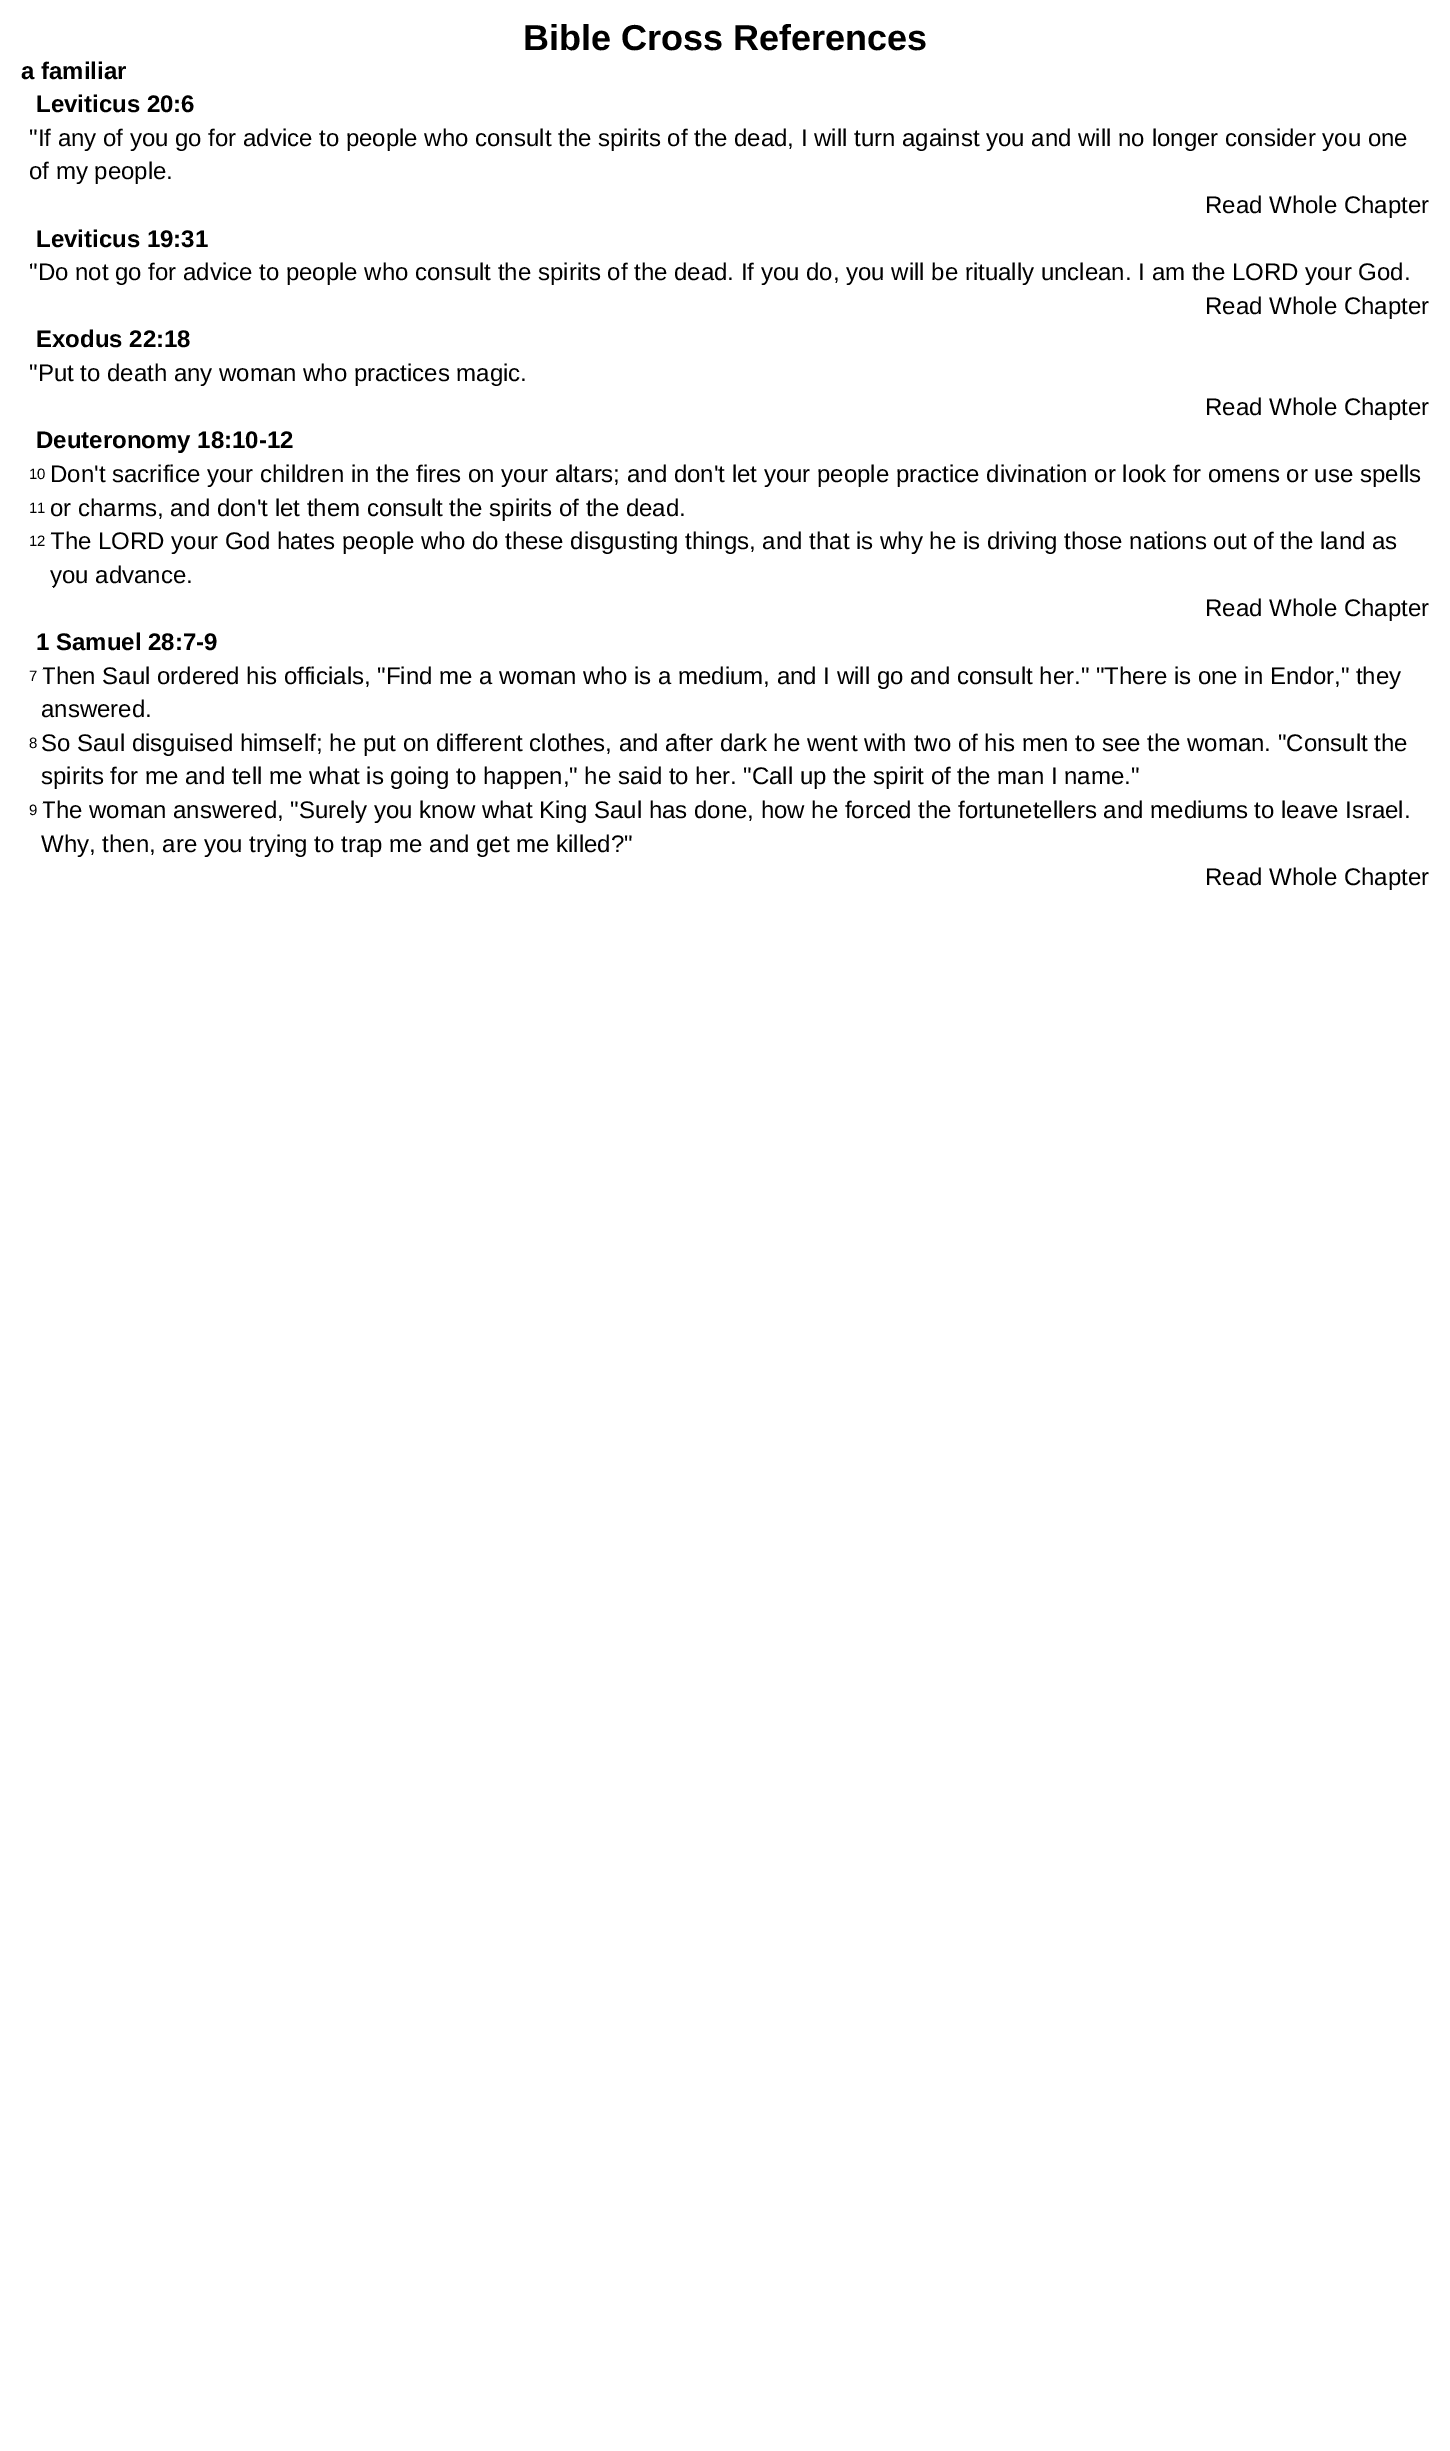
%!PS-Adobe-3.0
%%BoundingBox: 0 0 1450 2451
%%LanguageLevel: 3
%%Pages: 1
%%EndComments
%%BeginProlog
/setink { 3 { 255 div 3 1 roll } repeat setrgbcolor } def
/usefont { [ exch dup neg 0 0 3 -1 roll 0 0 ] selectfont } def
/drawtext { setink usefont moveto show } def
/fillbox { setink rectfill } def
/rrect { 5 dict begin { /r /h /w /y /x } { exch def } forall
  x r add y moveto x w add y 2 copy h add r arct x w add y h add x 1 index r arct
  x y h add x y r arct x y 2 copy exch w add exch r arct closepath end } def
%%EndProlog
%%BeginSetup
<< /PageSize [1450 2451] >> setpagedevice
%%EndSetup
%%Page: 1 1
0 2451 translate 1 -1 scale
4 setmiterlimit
0 0 1450 2451 255 255 255 fillbox
(Bible Cross References) 523 50 /LiberationSans-Bold 36 0 0 0 drawtext
(a familiar) 21 79 /LiberationSans-Bold 24 0 0 0 drawtext
(Leviticus 20:6) 36 112 /LiberationSans-Bold 24 0 0 0 drawtext
gsave
29 122 1393 67 15 rrect clip newpath
("If any of you go for advice to people who consult the spirits of the dead, I will turn against you and will no longer consider you one) 29 146 /LiberationSans-Regular 24 0 0 0 drawtext
grestore
(of my people.) 29 179 /LiberationSans-Regular 24 0 0 0 drawtext
(Read Whole Chapter) 1205 213 /LiberationSans-Regular 24 0 0 0 drawtext
(Leviticus 19:31) 36 247 /LiberationSans-Bold 24 0 0 0 drawtext
gsave
29 257 1393 33 15 rrect clip newpath
("Do not go for advice to people who consult the spirits of the dead. If you do, you will be ritually unclean. I am the LORD your God.) 29 280 /LiberationSans-Regular 24 0 0 0 drawtext
grestore
(Read Whole Chapter) 1205 314 /LiberationSans-Regular 24 0 0 0 drawtext
(Exodus 22:18) 36 347 /LiberationSans-Bold 24 0 0 0 drawtext
gsave
29 357 1393 33 15 rrect clip newpath
("Put to death any woman who practices magic.) 29 381 /LiberationSans-Regular 24 0 0 0 drawtext
grestore
(Read Whole Chapter) 1205 415 /LiberationSans-Regular 24 0 0 0 drawtext
(Deuteronomy 18:10-12) 36 448 /LiberationSans-Bold 24 0 0 0 drawtext
(10) 29 479 /LiberationSans-Regular 15 0 0 0 drawtext
gsave
50 458 1372 34 15 rrect clip newpath
(Don't sacrifice your children in the fires on your altars; and don't let your people practice divination or look for omens or use spells) 50 482 /LiberationSans-Regular 24 0 0 0 drawtext
grestore
(11) 29 513 /LiberationSans-Regular 15 0 0 0 drawtext
(or charms, and don't let them consult the spirits of the dead.) 50 516 /LiberationSans-Regular 24 0 0 0 drawtext
(12) 29 546 /LiberationSans-Regular 15 0 0 0 drawtext
gsave
50 525 1372 68 15 rrect clip newpath
(The LORD your God hates people who do these disgusting things, and that is why he is driving those nations out of the land as) 50 549 /LiberationSans-Regular 24 0 0 0 drawtext
(you advance.) 50 583 /LiberationSans-Regular 24 0 0 0 drawtext
grestore
(Read Whole Chapter) 1205 616 /LiberationSans-Regular 24 0 0 0 drawtext
(1 Samuel 28:7-9) 36 650 /LiberationSans-Bold 24 0 0 0 drawtext
(7) 29 681 /LiberationSans-Regular 15 0 0 0 drawtext
gsave
42 660 1380 68 15 rrect clip newpath
(Then Saul ordered his officials, "Find me a woman who is a medium, and I will go and consult her." "There is one in Endor," they) 41 684 /LiberationSans-Regular 24 0 0 0 drawtext
grestore
(answered.) 41 717 /LiberationSans-Regular 24 0 0 0 drawtext
(8) 29 748 /LiberationSans-Regular 15 0 0 0 drawtext
(So Saul disguised himself; he put on different clothes, and after dark he went with two of his men to see the woman. "Consult the) 41 751 /LiberationSans-Regular 24 0 0 0 drawtext
(spirits for me and tell me what is going to happen," he said to her. "Call up the spirit of the man I name.") 41 784 /LiberationSans-Regular 24 0 0 0 drawtext
(9) 29 815 /LiberationSans-Regular 15 0 0 0 drawtext
gsave
42 794 1380 67 15 rrect clip newpath
(The woman answered, "Surely you know what King Saul has done, how he forced the fortunetellers and mediums to leave Israel.) 41 818 /LiberationSans-Regular 24 0 0 0 drawtext
grestore
(Why, then, are you trying to trap me and get me killed?") 41 852 /LiberationSans-Regular 24 0 0 0 drawtext
(Read Whole Chapter) 1205 885 /LiberationSans-Regular 24 0 0 0 drawtext
showpage
%%EOF
